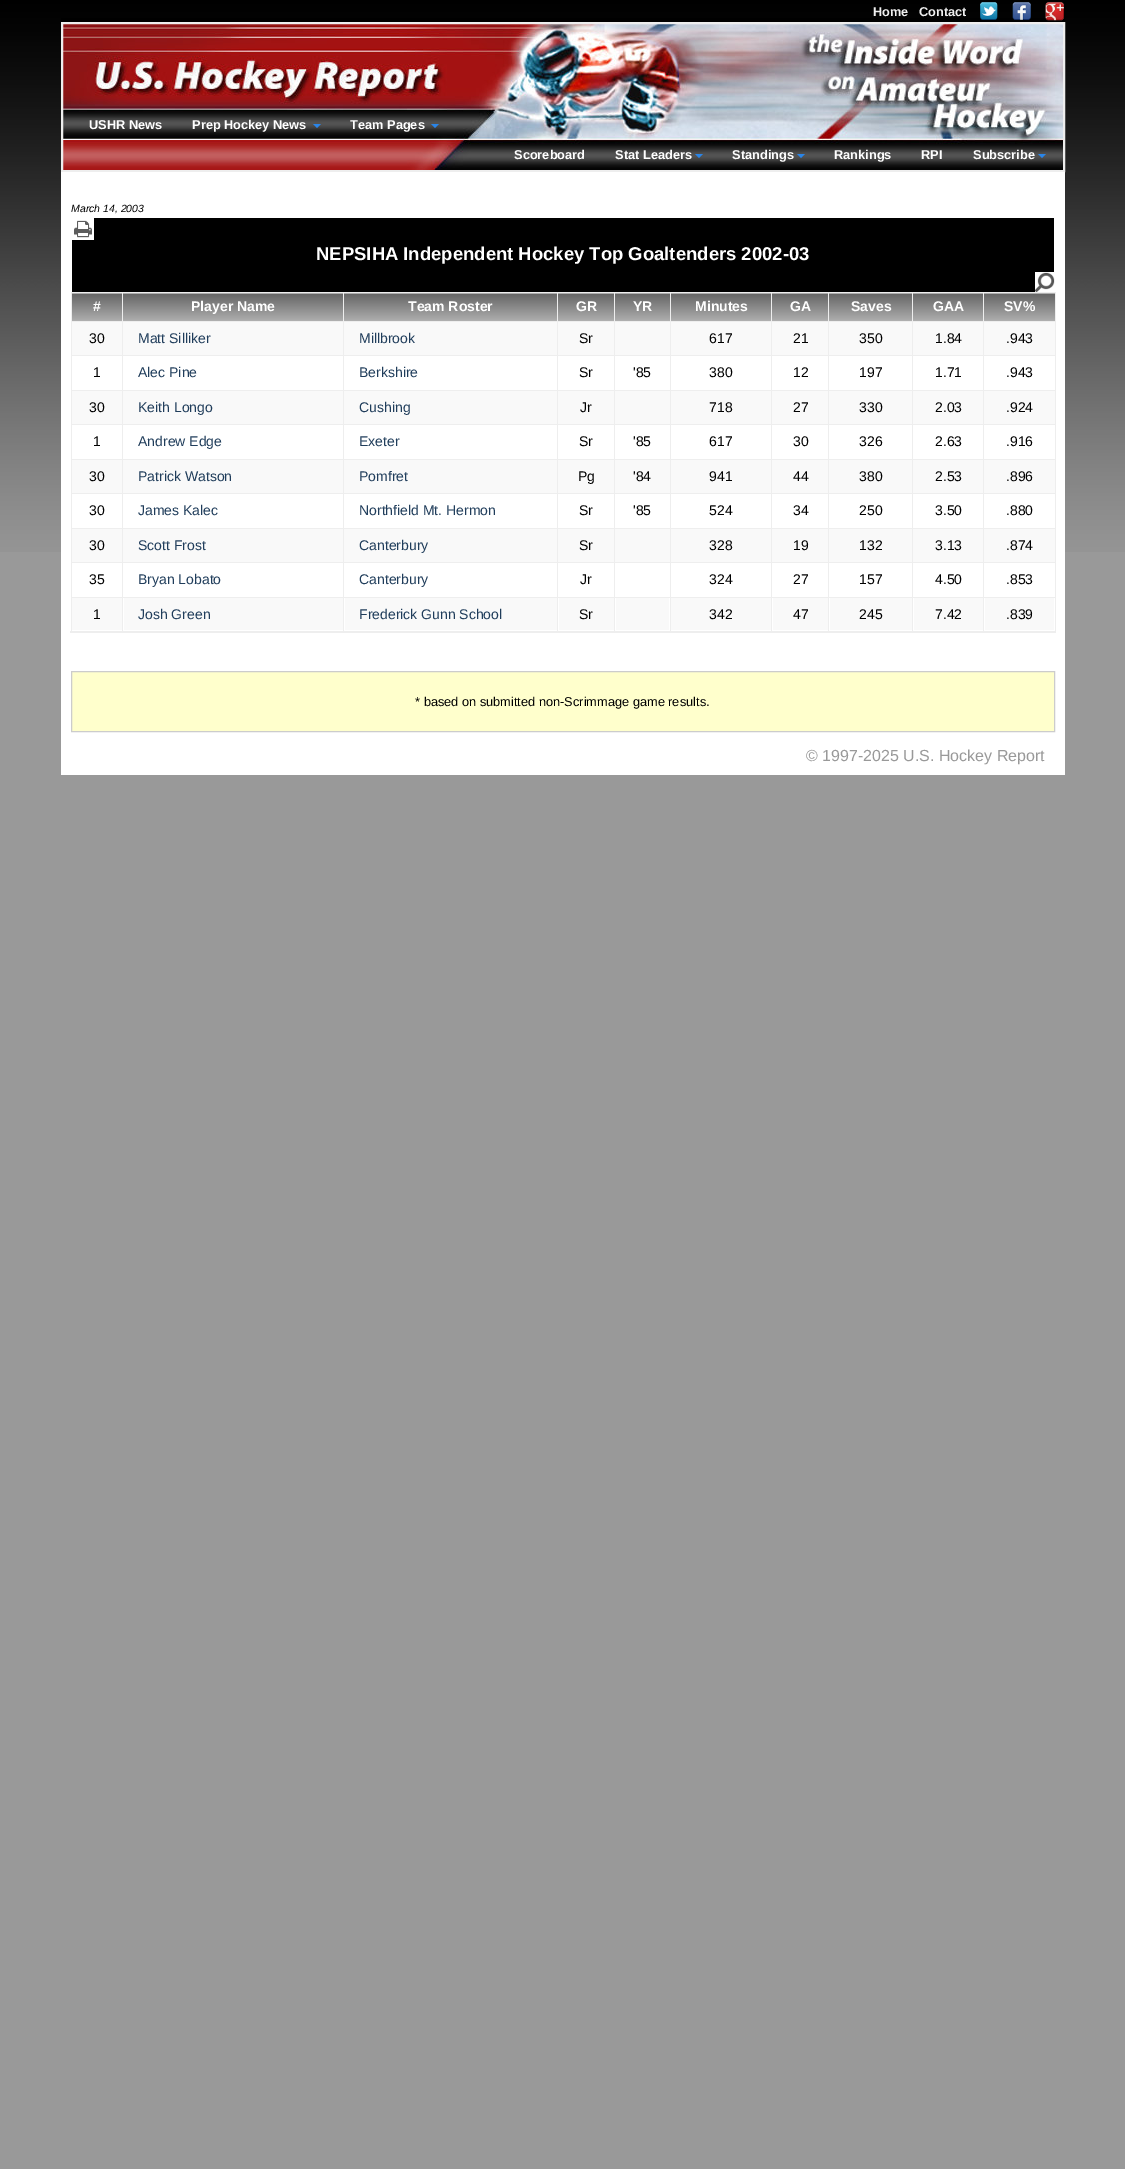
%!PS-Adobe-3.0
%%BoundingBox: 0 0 1125 2169
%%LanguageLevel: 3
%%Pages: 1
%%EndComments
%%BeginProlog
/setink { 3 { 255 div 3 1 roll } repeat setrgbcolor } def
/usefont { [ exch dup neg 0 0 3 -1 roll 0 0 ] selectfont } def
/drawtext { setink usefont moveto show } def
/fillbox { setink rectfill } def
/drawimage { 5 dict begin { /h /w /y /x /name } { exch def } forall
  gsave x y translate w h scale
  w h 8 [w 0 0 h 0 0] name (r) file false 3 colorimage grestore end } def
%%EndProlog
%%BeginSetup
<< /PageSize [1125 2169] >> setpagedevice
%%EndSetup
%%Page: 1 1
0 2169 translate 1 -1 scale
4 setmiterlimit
0 0 1125 2169 153 153 153 fillbox
(assets/img1.rgb) 0 0 1125 552 drawimage
61 18 1004 4 0 0 0 fillbox
(Home) 873 16 /LiberationSans-Bold 12.8 239 239 239 drawtext
(Contact) 919 16 /LiberationSans-Bold 12.8 239 239 239 drawtext
(assets/img2.rgb) 980 2 18 18 drawimage
(assets/img3.rgb) 1012 2 19 18 drawimage
(assets/img4.rgb) 1045 2 19 19 drawimage
(assets/img5.rgb) 63 24 1000 146 drawimage
238 238 238 setink
2 setlinewidth
62 23 1002 148 rectstroke
(USHR News) 89 129 /LiberationSans-Bold 12.8 255 255 255 drawtext
(Prep Hockey News) 192 129 /LiberationSans-Bold 12.8 255 255 255 drawtext
42 133 232 setink
313 124 moveto 321 124 lineto 317 128 lineto closepath fill
(Team Pages) 350 129 /LiberationSans-Bold 12.8 255 255 255 drawtext
42 133 232 setink
431 124 moveto 439 124 lineto 435 128 lineto closepath fill
(Scoreboard) 514 159 /LiberationSans-Bold 12.8 255 255 255 drawtext
(Stat Leaders) 615 159 /LiberationSans-Bold 12.8 255 255 255 drawtext
42 133 232 setink
695 154 moveto 703 154 lineto 699 158 lineto closepath fill
(Standings) 732 159 /LiberationSans-Bold 12.8 255 255 255 drawtext
42 133 232 setink
797 154 moveto 805 154 lineto 801 158 lineto closepath fill
(Rankings) 834 159 /LiberationSans-Bold 12.8 255 255 255 drawtext
(RPI) 921 159 /LiberationSans-Bold 12.8 255 255 255 drawtext
(Subscribe) 973 159 /LiberationSans-Bold 12.8 255 255 255 drawtext
42 133 232 setink
1038 154 moveto 1046 154 lineto 1042 158 lineto closepath fill
61 172 1004 603 255 255 255 fillbox
(March 14, 2003) 71 212 /LiberationSans-Italic 10.5 0 0 0 drawtext
72 218 982 74 0 0 0 fillbox
(assets/img6.rgb) 72 218 22 22 drawimage
(NEPSIHA Independent Hockey Top Goaltenders 2002-03) 316 260 /LiberationSans-Bold 18.5 255 255 255 drawtext
(assets/img7.rgb) 1035 272 20 20 drawimage
gsave 71 293 moveto 123 293 lineto 123 294 lineto 71 294 lineto closepath clip newpath
<< /ShadingType 2 /ColorSpace /DeviceRGB /Coords [97 267 97 294] /Extend [true true] /Function << /FunctionType 2 /Domain [0 1] /C0 [0.4 0.4 0.4] /C1 [0.682 0.682 0.682] /N 1 >> >> shfill grestore
gsave 72 294 moveto 122 294 lineto 122 321 lineto 72 321 lineto closepath clip newpath
<< /ShadingType 2 /ColorSpace /DeviceRGB /Coords [97 294 97 321] /Extend [true true] /Function << /FunctionType 2 /Domain [0 1] /C0 [0.4 0.4 0.4] /C1 [0.682 0.682 0.682] /N 1 >> >> shfill grestore
71 292 985 1 238 238 238 fillbox
983 321 73 1 238 238 238 fillbox
983 355 73 1 238 238 238 fillbox
983 390 73 1 238 238 238 fillbox
983 424 73 1 238 238 238 fillbox
983 459 73 1 238 238 238 fillbox
983 493 73 1 238 238 238 fillbox
983 528 73 1 238 238 238 fillbox
983 562 73 1 238 238 238 fillbox
983 597 73 1 238 238 238 fillbox
983 597 1 36 238 238 238 fillbox
912 597 72 1 238 238 238 fillbox
983 562 1 36 238 238 238 fillbox
912 562 72 1 238 238 238 fillbox
983 528 1 35 238 238 238 fillbox
912 528 72 1 238 238 238 fillbox
983 493 1 36 238 238 238 fillbox
912 493 72 1 238 238 238 fillbox
983 459 1 35 238 238 238 fillbox
912 459 72 1 238 238 238 fillbox
983 424 1 36 238 238 238 fillbox
912 424 72 1 238 238 238 fillbox
983 390 1 35 238 238 238 fillbox
912 390 72 1 238 238 238 fillbox
983 355 1 36 238 238 238 fillbox
912 355 72 1 238 238 238 fillbox
983 321 1 35 238 238 238 fillbox
912 321 72 1 238 238 238 fillbox
912 597 1 36 238 238 238 fillbox
828 597 85 1 238 238 238 fillbox
912 562 1 36 238 238 238 fillbox
828 562 85 1 238 238 238 fillbox
912 528 1 35 238 238 238 fillbox
828 528 85 1 238 238 238 fillbox
912 493 1 36 238 238 238 fillbox
828 493 85 1 238 238 238 fillbox
912 459 1 35 238 238 238 fillbox
828 459 85 1 238 238 238 fillbox
912 424 1 36 238 238 238 fillbox
828 424 85 1 238 238 238 fillbox
912 390 1 35 238 238 238 fillbox
828 390 85 1 238 238 238 fillbox
912 355 1 36 238 238 238 fillbox
828 355 85 1 238 238 238 fillbox
912 321 1 35 238 238 238 fillbox
828 321 85 1 238 238 238 fillbox
828 597 1 36 238 238 238 fillbox
771 597 58 1 238 238 238 fillbox
828 562 1 36 238 238 238 fillbox
771 562 58 1 238 238 238 fillbox
828 528 1 35 238 238 238 fillbox
771 528 58 1 238 238 238 fillbox
828 493 1 36 238 238 238 fillbox
771 493 58 1 238 238 238 fillbox
828 459 1 35 238 238 238 fillbox
771 459 58 1 238 238 238 fillbox
828 424 1 36 238 238 238 fillbox
771 424 58 1 238 238 238 fillbox
828 390 1 35 238 238 238 fillbox
771 390 58 1 238 238 238 fillbox
828 355 1 36 238 238 238 fillbox
771 355 58 1 238 238 238 fillbox
828 321 1 35 238 238 238 fillbox
771 321 58 1 238 238 238 fillbox
771 597 1 36 238 238 238 fillbox
670 597 102 1 238 238 238 fillbox
771 562 1 36 238 238 238 fillbox
670 562 102 1 238 238 238 fillbox
771 528 1 35 238 238 238 fillbox
670 528 102 1 238 238 238 fillbox
771 493 1 36 238 238 238 fillbox
670 493 102 1 238 238 238 fillbox
771 459 1 35 238 238 238 fillbox
670 459 102 1 238 238 238 fillbox
771 424 1 36 238 238 238 fillbox
670 424 102 1 238 238 238 fillbox
771 390 1 35 238 238 238 fillbox
670 390 102 1 238 238 238 fillbox
771 355 1 36 238 238 238 fillbox
670 355 102 1 238 238 238 fillbox
771 321 1 35 238 238 238 fillbox
670 321 102 1 238 238 238 fillbox
670 597 1 36 238 238 238 fillbox
614 597 57 1 238 238 238 fillbox
670 562 1 36 238 238 238 fillbox
614 562 57 1 238 238 238 fillbox
670 528 1 35 238 238 238 fillbox
614 528 57 1 238 238 238 fillbox
670 493 1 36 238 238 238 fillbox
614 493 57 1 238 238 238 fillbox
670 459 1 35 238 238 238 fillbox
614 459 57 1 238 238 238 fillbox
670 424 1 36 238 238 238 fillbox
614 424 57 1 238 238 238 fillbox
670 390 1 35 238 238 238 fillbox
614 390 57 1 238 238 238 fillbox
670 355 1 36 238 238 238 fillbox
614 355 57 1 238 238 238 fillbox
670 321 1 35 238 238 238 fillbox
614 321 57 1 238 238 238 fillbox
614 597 1 36 238 238 238 fillbox
557 597 58 1 238 238 238 fillbox
614 562 1 36 238 238 238 fillbox
557 562 58 1 238 238 238 fillbox
614 528 1 35 238 238 238 fillbox
557 528 58 1 238 238 238 fillbox
614 493 1 36 238 238 238 fillbox
557 493 58 1 238 238 238 fillbox
614 459 1 35 238 238 238 fillbox
557 459 58 1 238 238 238 fillbox
614 424 1 36 238 238 238 fillbox
557 424 58 1 238 238 238 fillbox
614 390 1 35 238 238 238 fillbox
557 390 58 1 238 238 238 fillbox
614 355 1 36 238 238 238 fillbox
557 355 58 1 238 238 238 fillbox
614 321 1 35 238 238 238 fillbox
557 321 58 1 238 238 238 fillbox
557 597 1 36 238 238 238 fillbox
343 597 215 1 238 238 238 fillbox
557 562 1 36 238 238 238 fillbox
343 562 215 1 238 238 238 fillbox
557 528 1 35 238 238 238 fillbox
343 528 215 1 238 238 238 fillbox
557 493 1 36 238 238 238 fillbox
343 493 215 1 238 238 238 fillbox
557 459 1 35 238 238 238 fillbox
343 459 215 1 238 238 238 fillbox
557 424 1 36 238 238 238 fillbox
343 424 215 1 238 238 238 fillbox
557 390 1 35 238 238 238 fillbox
343 390 215 1 238 238 238 fillbox
557 355 1 36 238 238 238 fillbox
343 355 215 1 238 238 238 fillbox
557 321 1 35 238 238 238 fillbox
343 321 215 1 238 238 238 fillbox
343 597 1 36 238 238 238 fillbox
122 597 222 1 238 238 238 fillbox
343 562 1 36 238 238 238 fillbox
122 562 222 1 238 238 238 fillbox
343 528 1 35 238 238 238 fillbox
122 528 222 1 238 238 238 fillbox
343 493 1 36 238 238 238 fillbox
122 493 222 1 238 238 238 fillbox
343 459 1 35 238 238 238 fillbox
122 459 222 1 238 238 238 fillbox
343 424 1 36 238 238 238 fillbox
122 424 222 1 238 238 238 fillbox
343 390 1 35 238 238 238 fillbox
122 390 222 1 238 238 238 fillbox
343 355 1 36 238 238 238 fillbox
122 355 222 1 238 238 238 fillbox
343 321 1 35 238 238 238 fillbox
122 321 222 1 238 238 238 fillbox
122 597 1 36 238 238 238 fillbox
71 597 52 1 238 238 238 fillbox
122 562 1 36 238 238 238 fillbox
71 562 52 1 238 238 238 fillbox
122 528 1 35 238 238 238 fillbox
71 528 52 1 238 238 238 fillbox
122 493 1 36 238 238 238 fillbox
71 493 52 1 238 238 238 fillbox
122 459 1 35 238 238 238 fillbox
71 459 52 1 238 238 238 fillbox
122 424 1 36 238 238 238 fillbox
71 424 52 1 238 238 238 fillbox
122 390 1 35 238 238 238 fillbox
71 390 52 1 238 238 238 fillbox
122 355 1 36 238 238 238 fillbox
71 355 52 1 238 238 238 fillbox
122 321 1 35 238 238 238 fillbox
71 321 52 1 238 238 238 fillbox
122 292 1 30 238 238 238 fillbox
71 597 1 36 238 238 238 fillbox
71 562 1 36 238 238 238 fillbox
71 528 1 35 238 238 238 fillbox
71 493 1 36 238 238 238 fillbox
71 459 1 35 238 238 238 fillbox
71 424 1 36 238 238 238 fillbox
71 390 1 35 238 238 238 fillbox
71 355 1 36 238 238 238 fillbox
71 321 1 35 238 238 238 fillbox
71 292 1 30 238 238 238 fillbox
(#) 93 311 /LiberationSans-Bold 14 255 255 255 drawtext
gsave 123 293 moveto 344 293 lineto 344 294 lineto 123 294 lineto closepath clip newpath
<< /ShadingType 2 /ColorSpace /DeviceRGB /Coords [233 267 233 294] /Extend [true true] /Function << /FunctionType 2 /Domain [0 1] /C0 [0.4 0.4 0.4] /C1 [0.682 0.682 0.682] /N 1 >> >> shfill grestore
gsave 123 294 moveto 343 294 lineto 343 321 lineto 123 321 lineto closepath clip newpath
<< /ShadingType 2 /ColorSpace /DeviceRGB /Coords [233 294 233 321] /Extend [true true] /Function << /FunctionType 2 /Domain [0 1] /C0 [0.4 0.4 0.4] /C1 [0.682 0.682 0.682] /N 1 >> >> shfill grestore
343 292 1 30 238 238 238 fillbox
(Player Name) 191 311 /LiberationSans-Bold 14 255 255 255 drawtext
gsave 344 293 moveto 558 293 lineto 558 294 lineto 344 294 lineto closepath clip newpath
<< /ShadingType 2 /ColorSpace /DeviceRGB /Coords [451 267 451 294] /Extend [true true] /Function << /FunctionType 2 /Domain [0 1] /C0 [0.4 0.4 0.4] /C1 [0.682 0.682 0.682] /N 1 >> >> shfill grestore
gsave 344 294 moveto 557 294 lineto 557 321 lineto 344 321 lineto closepath clip newpath
<< /ShadingType 2 /ColorSpace /DeviceRGB /Coords [451 294 451 321] /Extend [true true] /Function << /FunctionType 2 /Domain [0 1] /C0 [0.4 0.4 0.4] /C1 [0.682 0.682 0.682] /N 1 >> >> shfill grestore
557 292 1 30 238 238 238 fillbox
(Team Roster) 408 311 /LiberationSans-Bold 14 255 255 255 drawtext
gsave 558 293 moveto 615 293 lineto 615 294 lineto 558 294 lineto closepath clip newpath
<< /ShadingType 2 /ColorSpace /DeviceRGB /Coords [586 267 586 294] /Extend [true true] /Function << /FunctionType 2 /Domain [0 1] /C0 [0.4 0.4 0.4] /C1 [0.682 0.682 0.682] /N 1 >> >> shfill grestore
gsave 558 294 moveto 614 294 lineto 614 321 lineto 558 321 lineto closepath clip newpath
<< /ShadingType 2 /ColorSpace /DeviceRGB /Coords [586 294 586 321] /Extend [true true] /Function << /FunctionType 2 /Domain [0 1] /C0 [0.4 0.4 0.4] /C1 [0.682 0.682 0.682] /N 1 >> >> shfill grestore
614 292 1 30 238 238 238 fillbox
(GR) 576 311 /LiberationSans-Bold 14 255 255 255 drawtext
gsave 615 293 moveto 670 293 lineto 670 294 lineto 615 294 lineto closepath clip newpath
<< /ShadingType 2 /ColorSpace /DeviceRGB /Coords [642 267 642 294] /Extend [true true] /Function << /FunctionType 2 /Domain [0 1] /C0 [0.4 0.4 0.4] /C1 [0.682 0.682 0.682] /N 1 >> >> shfill grestore
gsave 615 294 moveto 670 294 lineto 670 321 lineto 615 321 lineto closepath clip newpath
<< /ShadingType 2 /ColorSpace /DeviceRGB /Coords [642 294 642 321] /Extend [true true] /Function << /FunctionType 2 /Domain [0 1] /C0 [0.4 0.4 0.4] /C1 [0.682 0.682 0.682] /N 1 >> >> shfill grestore
gsave 670 293 moveto 772 293 lineto 772 294 lineto 670 294 lineto closepath clip newpath
<< /ShadingType 2 /ColorSpace /DeviceRGB /Coords [721 267 721 294] /Extend [true true] /Function << /FunctionType 2 /Domain [0 1] /C0 [0.4 0.4 0.4] /C1 [0.682 0.682 0.682] /N 1 >> >> shfill grestore
670 292 1 30 238 238 238 fillbox
(YR) 633 311 /LiberationSans-Bold 14 255 255 255 drawtext
gsave 671 294 moveto 771 294 lineto 771 321 lineto 671 321 lineto closepath clip newpath
<< /ShadingType 2 /ColorSpace /DeviceRGB /Coords [721 294 721 321] /Extend [true true] /Function << /FunctionType 2 /Domain [0 1] /C0 [0.4 0.4 0.4] /C1 [0.682 0.682 0.682] /N 1 >> >> shfill grestore
771 292 1 30 238 238 238 fillbox
(Minutes) 695 311 /LiberationSans-Bold 14 255 255 255 drawtext
gsave 772 293 moveto 829 293 lineto 829 294 lineto 772 294 lineto closepath clip newpath
<< /ShadingType 2 /ColorSpace /DeviceRGB /Coords [800 267 800 294] /Extend [true true] /Function << /FunctionType 2 /Domain [0 1] /C0 [0.4 0.4 0.4] /C1 [0.682 0.682 0.682] /N 1 >> >> shfill grestore
gsave 772 294 moveto 828 294 lineto 828 321 lineto 772 321 lineto closepath clip newpath
<< /ShadingType 2 /ColorSpace /DeviceRGB /Coords [800 294 800 321] /Extend [true true] /Function << /FunctionType 2 /Domain [0 1] /C0 [0.4 0.4 0.4] /C1 [0.682 0.682 0.682] /N 1 >> >> shfill grestore
828 292 1 30 238 238 238 fillbox
(GA) 790 311 /LiberationSans-Bold 14 255 255 255 drawtext
gsave 829 293 moveto 913 293 lineto 913 294 lineto 829 294 lineto closepath clip newpath
<< /ShadingType 2 /ColorSpace /DeviceRGB /Coords [871 267 871 294] /Extend [true true] /Function << /FunctionType 2 /Domain [0 1] /C0 [0.4 0.4 0.4] /C1 [0.682 0.682 0.682] /N 1 >> >> shfill grestore
gsave 829 294 moveto 912 294 lineto 912 321 lineto 829 321 lineto closepath clip newpath
<< /ShadingType 2 /ColorSpace /DeviceRGB /Coords [871 294 871 321] /Extend [true true] /Function << /FunctionType 2 /Domain [0 1] /C0 [0.4 0.4 0.4] /C1 [0.682 0.682 0.682] /N 1 >> >> shfill grestore
912 292 1 30 238 238 238 fillbox
(Saves) 851 311 /LiberationSans-Bold 14 255 255 255 drawtext
gsave 913 293 moveto 984 293 lineto 984 294 lineto 913 294 lineto closepath clip newpath
<< /ShadingType 2 /ColorSpace /DeviceRGB /Coords [948 267 948 294] /Extend [true true] /Function << /FunctionType 2 /Domain [0 1] /C0 [0.4 0.4 0.4] /C1 [0.682 0.682 0.682] /N 1 >> >> shfill grestore
gsave 913 294 moveto 983 294 lineto 983 321 lineto 913 321 lineto closepath clip newpath
<< /ShadingType 2 /ColorSpace /DeviceRGB /Coords [948 294 948 321] /Extend [true true] /Function << /FunctionType 2 /Domain [0 1] /C0 [0.4 0.4 0.4] /C1 [0.682 0.682 0.682] /N 1 >> >> shfill grestore
983 292 1 30 238 238 238 fillbox
(GAA) 933 311 /LiberationSans-Bold 14 255 255 255 drawtext
gsave 984 293 moveto 1055 293 lineto 1055 294 lineto 984 294 lineto closepath clip newpath
<< /ShadingType 2 /ColorSpace /DeviceRGB /Coords [1019 267 1019 294] /Extend [true true] /Function << /FunctionType 2 /Domain [0 1] /C0 [0.4 0.4 0.4] /C1 [0.682 0.682 0.682] /N 1 >> >> shfill grestore
gsave 984 294 moveto 1055 294 lineto 1055 321 lineto 984 321 lineto closepath clip newpath
<< /ShadingType 2 /ColorSpace /DeviceRGB /Coords [1019 294 1019 321] /Extend [true true] /Function << /FunctionType 2 /Domain [0 1] /C0 [0.4 0.4 0.4] /C1 [0.682 0.682 0.682] /N 1 >> >> shfill grestore
1055 597 1 36 238 238 238 fillbox
1055 562 1 36 238 238 238 fillbox
1055 528 1 35 238 238 238 fillbox
1055 493 1 36 238 238 238 fillbox
1055 459 1 35 238 238 238 fillbox
1055 424 1 36 238 238 238 fillbox
1055 390 1 35 238 238 238 fillbox
1055 355 1 36 238 238 238 fillbox
1055 321 1 35 238 238 238 fillbox
1055 292 1 30 238 238 238 fillbox
(SV%) 1004 311 /LiberationSans-Bold 14 255 255 255 drawtext
72 322 50 33 249 249 249 fillbox
(30) 89 343 /LiberationSans-Regular 14 0 0 0 drawtext
123 322 220 33 249 249 249 fillbox
(Matt Silliker) 138 343 /LiberationSans-Regular 14 32 61 91 drawtext
344 322 213 33 249 249 249 fillbox
(Millbrook) 359 343 /LiberationSans-Regular 14 32 61 91 drawtext
558 322 56 33 249 249 249 fillbox
(Sr) 579 343 /LiberationSans-Regular 14 0 0 0 drawtext
615 322 55 33 249 249 249 fillbox
671 322 100 33 249 249 249 fillbox
(617) 709 343 /LiberationSans-Regular 14 0 0 0 drawtext
772 322 56 33 249 249 249 fillbox
(21) 793 343 /LiberationSans-Regular 14 0 0 0 drawtext
829 322 83 33 249 249 249 fillbox
(350) 859 343 /LiberationSans-Regular 14 0 0 0 drawtext
913 322 70 33 249 249 249 fillbox
(1.84) 935 343 /LiberationSans-Regular 14 0 0 0 drawtext
984 322 71 33 249 249 249 fillbox
(.943) 1006 343 /LiberationSans-Regular 14 0 0 0 drawtext
(1) 93 377 /LiberationSans-Regular 14 0 0 0 drawtext
(Alec Pine) 138 377 /LiberationSans-Regular 14 32 61 91 drawtext
(Berkshire) 359 377 /LiberationSans-Regular 14 32 61 91 drawtext
(Sr) 579 377 /LiberationSans-Regular 14 0 0 0 drawtext
('85) 633 377 /LiberationSans-Regular 14 0 0 0 drawtext
(380) 709 377 /LiberationSans-Regular 14 0 0 0 drawtext
(12) 793 377 /LiberationSans-Regular 14 0 0 0 drawtext
(197) 859 377 /LiberationSans-Regular 14 0 0 0 drawtext
(1.71) 935 377 /LiberationSans-Regular 14 0 0 0 drawtext
(.943) 1006 377 /LiberationSans-Regular 14 0 0 0 drawtext
72 391 50 33 249 249 249 fillbox
(30) 89 412 /LiberationSans-Regular 14 0 0 0 drawtext
123 391 220 33 249 249 249 fillbox
(Keith Longo) 138 412 /LiberationSans-Regular 14 32 61 91 drawtext
344 391 213 33 249 249 249 fillbox
(Cushing) 359 412 /LiberationSans-Regular 14 32 61 91 drawtext
558 391 56 33 249 249 249 fillbox
(Jr) 580 412 /LiberationSans-Regular 14 0 0 0 drawtext
615 391 55 33 249 249 249 fillbox
671 391 100 33 249 249 249 fillbox
(718) 709 412 /LiberationSans-Regular 14 0 0 0 drawtext
772 391 56 33 249 249 249 fillbox
(27) 793 412 /LiberationSans-Regular 14 0 0 0 drawtext
829 391 83 33 249 249 249 fillbox
(330) 859 412 /LiberationSans-Regular 14 0 0 0 drawtext
913 391 70 33 249 249 249 fillbox
(2.03) 935 412 /LiberationSans-Regular 14 0 0 0 drawtext
984 391 71 33 249 249 249 fillbox
(.924) 1006 412 /LiberationSans-Regular 14 0 0 0 drawtext
(1) 93 446 /LiberationSans-Regular 14 0 0 0 drawtext
(Andrew Edge) 138 446 /LiberationSans-Regular 14 32 61 91 drawtext
(Exeter) 359 446 /LiberationSans-Regular 14 32 61 91 drawtext
(Sr) 579 446 /LiberationSans-Regular 14 0 0 0 drawtext
('85) 633 446 /LiberationSans-Regular 14 0 0 0 drawtext
(617) 709 446 /LiberationSans-Regular 14 0 0 0 drawtext
(30) 793 446 /LiberationSans-Regular 14 0 0 0 drawtext
(326) 859 446 /LiberationSans-Regular 14 0 0 0 drawtext
(2.63) 935 446 /LiberationSans-Regular 14 0 0 0 drawtext
(.916) 1006 446 /LiberationSans-Regular 14 0 0 0 drawtext
72 460 50 33 249 249 249 fillbox
(30) 89 481 /LiberationSans-Regular 14 0 0 0 drawtext
123 460 220 33 249 249 249 fillbox
(Patrick Watson) 138 481 /LiberationSans-Regular 14 32 61 91 drawtext
344 460 213 33 249 249 249 fillbox
(Pomfret) 359 481 /LiberationSans-Regular 14 32 61 91 drawtext
558 460 56 33 249 249 249 fillbox
(Pg) 578 481 /LiberationSans-Regular 14 0 0 0 drawtext
615 460 55 33 249 249 249 fillbox
('84) 633 481 /LiberationSans-Regular 14 0 0 0 drawtext
671 460 100 33 249 249 249 fillbox
(941) 709 481 /LiberationSans-Regular 14 0 0 0 drawtext
772 460 56 33 249 249 249 fillbox
(44) 793 481 /LiberationSans-Regular 14 0 0 0 drawtext
829 460 83 33 249 249 249 fillbox
(380) 859 481 /LiberationSans-Regular 14 0 0 0 drawtext
913 460 70 33 249 249 249 fillbox
(2.53) 935 481 /LiberationSans-Regular 14 0 0 0 drawtext
984 460 71 33 249 249 249 fillbox
(.896) 1006 481 /LiberationSans-Regular 14 0 0 0 drawtext
(30) 89 515 /LiberationSans-Regular 14 0 0 0 drawtext
(James Kalec) 138 515 /LiberationSans-Regular 14 32 61 91 drawtext
(Northfield Mt. Hermon) 359 515 /LiberationSans-Regular 14 32 61 91 drawtext
(Sr) 579 515 /LiberationSans-Regular 14 0 0 0 drawtext
('85) 633 515 /LiberationSans-Regular 14 0 0 0 drawtext
(524) 709 515 /LiberationSans-Regular 14 0 0 0 drawtext
(34) 793 515 /LiberationSans-Regular 14 0 0 0 drawtext
(250) 859 515 /LiberationSans-Regular 14 0 0 0 drawtext
(3.50) 935 515 /LiberationSans-Regular 14 0 0 0 drawtext
(.880) 1006 515 /LiberationSans-Regular 14 0 0 0 drawtext
72 529 50 33 249 249 249 fillbox
(30) 89 550 /LiberationSans-Regular 14 0 0 0 drawtext
123 529 220 33 249 249 249 fillbox
(Scott Frost) 138 550 /LiberationSans-Regular 14 32 61 91 drawtext
344 529 213 33 249 249 249 fillbox
(Canterbury) 359 550 /LiberationSans-Regular 14 32 61 91 drawtext
558 529 56 33 249 249 249 fillbox
(Sr) 579 550 /LiberationSans-Regular 14 0 0 0 drawtext
615 529 55 33 249 249 249 fillbox
671 529 100 33 249 249 249 fillbox
(328) 709 550 /LiberationSans-Regular 14 0 0 0 drawtext
772 529 56 33 249 249 249 fillbox
(19) 793 550 /LiberationSans-Regular 14 0 0 0 drawtext
829 529 83 33 249 249 249 fillbox
(132) 859 550 /LiberationSans-Regular 14 0 0 0 drawtext
913 529 70 33 249 249 249 fillbox
(3.13) 935 550 /LiberationSans-Regular 14 0 0 0 drawtext
984 529 71 33 249 249 249 fillbox
(.874) 1006 550 /LiberationSans-Regular 14 0 0 0 drawtext
(35) 89 584 /LiberationSans-Regular 14 0 0 0 drawtext
(Bryan Lobato) 138 584 /LiberationSans-Regular 14 32 61 91 drawtext
(Canterbury) 359 584 /LiberationSans-Regular 14 32 61 91 drawtext
(Jr) 580 584 /LiberationSans-Regular 14 0 0 0 drawtext
(324) 709 584 /LiberationSans-Regular 14 0 0 0 drawtext
(27) 793 584 /LiberationSans-Regular 14 0 0 0 drawtext
(157) 859 584 /LiberationSans-Regular 14 0 0 0 drawtext
(4.50) 935 584 /LiberationSans-Regular 14 0 0 0 drawtext
(.853) 1006 584 /LiberationSans-Regular 14 0 0 0 drawtext
72 598 50 32 249 249 249 fillbox
(1) 93 619 /LiberationSans-Regular 14 0 0 0 drawtext
124 598 219 32 249 249 249 fillbox
(Josh Green) 138 619 /LiberationSans-Regular 14 32 61 91 drawtext
345 598 212 32 249 249 249 fillbox
(Frederick Gunn School) 359 619 /LiberationSans-Regular 14 32 61 91 drawtext
559 598 55 32 249 249 249 fillbox
(Sr) 579 619 /LiberationSans-Regular 14 0 0 0 drawtext
616 598 53 32 249 249 249 fillbox
671 598 100 32 249 249 249 fillbox
(342) 709 619 /LiberationSans-Regular 14 0 0 0 drawtext
773 598 55 32 249 249 249 fillbox
(47) 793 619 /LiberationSans-Regular 14 0 0 0 drawtext
830 598 82 32 249 249 249 fillbox
(245) 859 619 /LiberationSans-Regular 14 0 0 0 drawtext
914 598 69 32 249 249 249 fillbox
(7.42) 935 619 /LiberationSans-Regular 14 0 0 0 drawtext
985 598 69 32 249 249 249 fillbox
70 631 986 2 238 238 238 fillbox
(.839) 1006 619 /LiberationSans-Regular 14 0 0 0 drawtext
255 255 204 setink
71.5 671.5 moveto 1054.5 671.5 lineto 1054.5 731.5 lineto 71.5 731.5 lineto closepath gsave fill grestore
204 204 204 setink
1 setlinewidth
stroke
(* based on submitted non-Scrimmage game results.) 415 706 /LiberationSans-Regular 12.8 0 0 0 drawtext
(© 1997-2025 U.S. Hockey Report) 806 761 /LiberationSans-Regular 16 153 153 153 drawtext
showpage
%%EOF
